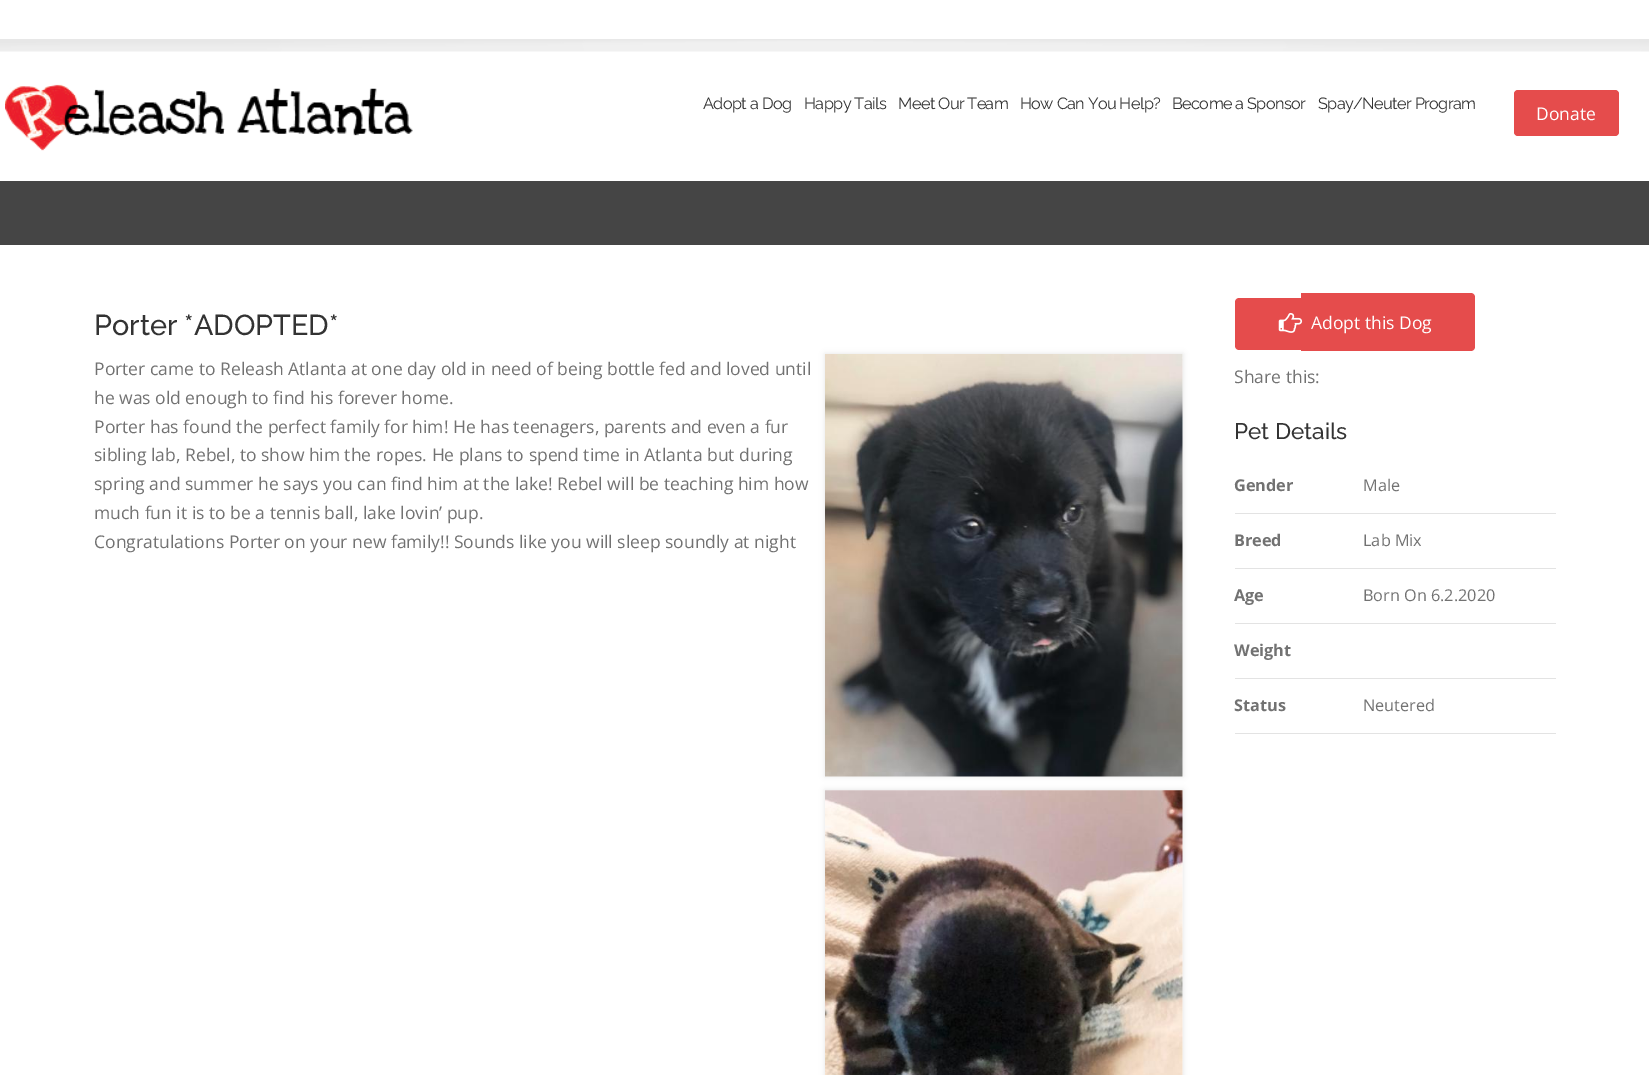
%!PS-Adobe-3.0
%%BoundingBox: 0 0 1649 1075
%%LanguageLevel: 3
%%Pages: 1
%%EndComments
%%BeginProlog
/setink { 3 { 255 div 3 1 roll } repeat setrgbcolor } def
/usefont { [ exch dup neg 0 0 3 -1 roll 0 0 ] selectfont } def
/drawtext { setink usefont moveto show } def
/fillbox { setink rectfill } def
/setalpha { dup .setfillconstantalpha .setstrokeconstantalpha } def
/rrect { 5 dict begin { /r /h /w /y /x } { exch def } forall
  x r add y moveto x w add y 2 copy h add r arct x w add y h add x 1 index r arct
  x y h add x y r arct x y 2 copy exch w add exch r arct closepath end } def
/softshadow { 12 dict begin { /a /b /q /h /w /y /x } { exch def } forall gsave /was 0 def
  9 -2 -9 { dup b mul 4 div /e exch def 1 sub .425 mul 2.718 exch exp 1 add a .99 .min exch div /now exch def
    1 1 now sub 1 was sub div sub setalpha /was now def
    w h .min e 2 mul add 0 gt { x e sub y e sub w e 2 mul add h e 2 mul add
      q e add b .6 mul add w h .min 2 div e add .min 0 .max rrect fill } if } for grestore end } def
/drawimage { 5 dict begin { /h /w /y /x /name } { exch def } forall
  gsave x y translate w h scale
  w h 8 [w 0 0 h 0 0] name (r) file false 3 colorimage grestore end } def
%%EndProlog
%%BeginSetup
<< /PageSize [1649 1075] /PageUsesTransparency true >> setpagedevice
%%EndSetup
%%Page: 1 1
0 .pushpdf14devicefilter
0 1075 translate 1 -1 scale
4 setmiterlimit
0 0 1649 1075 255 255 255 fillbox
(assets/img1.rgb) 0 39 1649 13 drawimage
(assets/img2.rgb) 5 84 408 67 drawimage
/Raleway-Regular 16.25 usefont
51 51 51 setink
703 109 moveto -0.6 0 (Adopt a Dog) ashow
804 109 moveto -0.6 0 (Happy Tails) ashow
898 109 moveto -0.6 0 (Meet Our Team) ashow
1020 109 moveto -0.6 0 (How Can You Help?) ashow
1172 109 moveto -0.6 0 (Become a Sponsor) ashow
1318 109 moveto -0.6 0 (Spay/Neuter Program) ashow
229 76 76 setink
1514 90 105 46 4 rrect fill
(Donate) 1536 120 /OpenSans-Regular 17.5 255 255 255 drawtext
0 181 1649 64 69 69 69 fillbox
(Porter *ADOPTED*) 94 335 /Raleway-Medium 28.75 51 51 51 drawtext
(Porter came to Releash Atlanta at one day old in need of being bottle fed and loved until) 94 375 /OpenSans-Regular 17.5 114 114 114 drawtext
(he was old enough to find his forever home.) 94 404 /OpenSans-Regular 17.5 114 114 114 drawtext
(Porter has found the perfect family for him! He has teenagers, parents and even a fur) 94 433 /OpenSans-Regular 17.5 114 114 114 drawtext
(sibling lab, Rebel, to show him the ropes. He plans to spend time in Atlanta but during) 94 461 /OpenSans-Regular 17.5 114 114 114 drawtext
(spring and summer he says you can find him at the lake! Rebel will be teaching him how) 94 490 /OpenSans-Regular 17.5 114 114 114 drawtext
(much fun it is to be a tennis ball, lake lovin’ pup.) 94 519 /OpenSans-Regular 17.5 114 114 114 drawtext
(Congratulations Porter on your new family!! Sounds like you will sleep soundly at night) 94 548 /OpenSans-Regular 17.5 114 114 114 drawtext
0 0 0 setink
825 354 358 422 0 3 0.1 softshadow
(assets/img3.rgb) 825 354 358 423 drawimage
825 790 358 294 0 3 0.1 softshadow
(assets/img4.rgb) 825 790 358 285 drawimage
229 76 76 setink
1239 298 moveto 1301 298 lineto 1301 350 lineto 1239 350 lineto 1237 350 1235 348 1235 346 curveto 1235 302 lineto 1235 300 1237 298 1239 298 curveto closepath fill
1301 293 moveto 1471 293 lineto 1473 293 1475 295 1475 297 curveto 1475 347 lineto 1475 349 1473 351 1471 351 curveto 1301 351 lineto closepath fill
(assets/img5.rgb) 1278 312 25 21 drawimage
(Adopt this Dog) 1311 329 /OpenSans-Regular 17.5 255 255 255 drawtext
(Share this:) 1234 383 /OpenSans-Regular 17.5 114 114 114 drawtext
(Pet Details) 1234 439 /Raleway-Medium 22.5 51 51 51 drawtext
1235 513 321 1 227 227 227 fillbox
(Gender) 1234 491 /OpenSans-Bold 16.25 114 114 114 drawtext
(Male) 1363 491 /OpenSans-Regular 16.25 114 114 114 drawtext
1235 568 321 1 227 227 227 fillbox
(Breed) 1234 546 /OpenSans-Bold 16.25 114 114 114 drawtext
(Lab Mix) 1363 546 /OpenSans-Regular 16.25 114 114 114 drawtext
1235 623 321 1 227 227 227 fillbox
(Age) 1234 601 /OpenSans-Bold 16.25 114 114 114 drawtext
(Born On 6.2.2020) 1363 601 /OpenSans-Regular 16.25 114 114 114 drawtext
1235 678 321 1 227 227 227 fillbox
(Weight) 1234 656 /OpenSans-Bold 16.25 114 114 114 drawtext
1235 733 321 1 227 227 227 fillbox
(Status) 1234 711 /OpenSans-Bold 16.25 114 114 114 drawtext
(Neutered) 1363 711 /OpenSans-Regular 16.25 114 114 114 drawtext
.poppdf14devicefilter showpage
%%EOF
